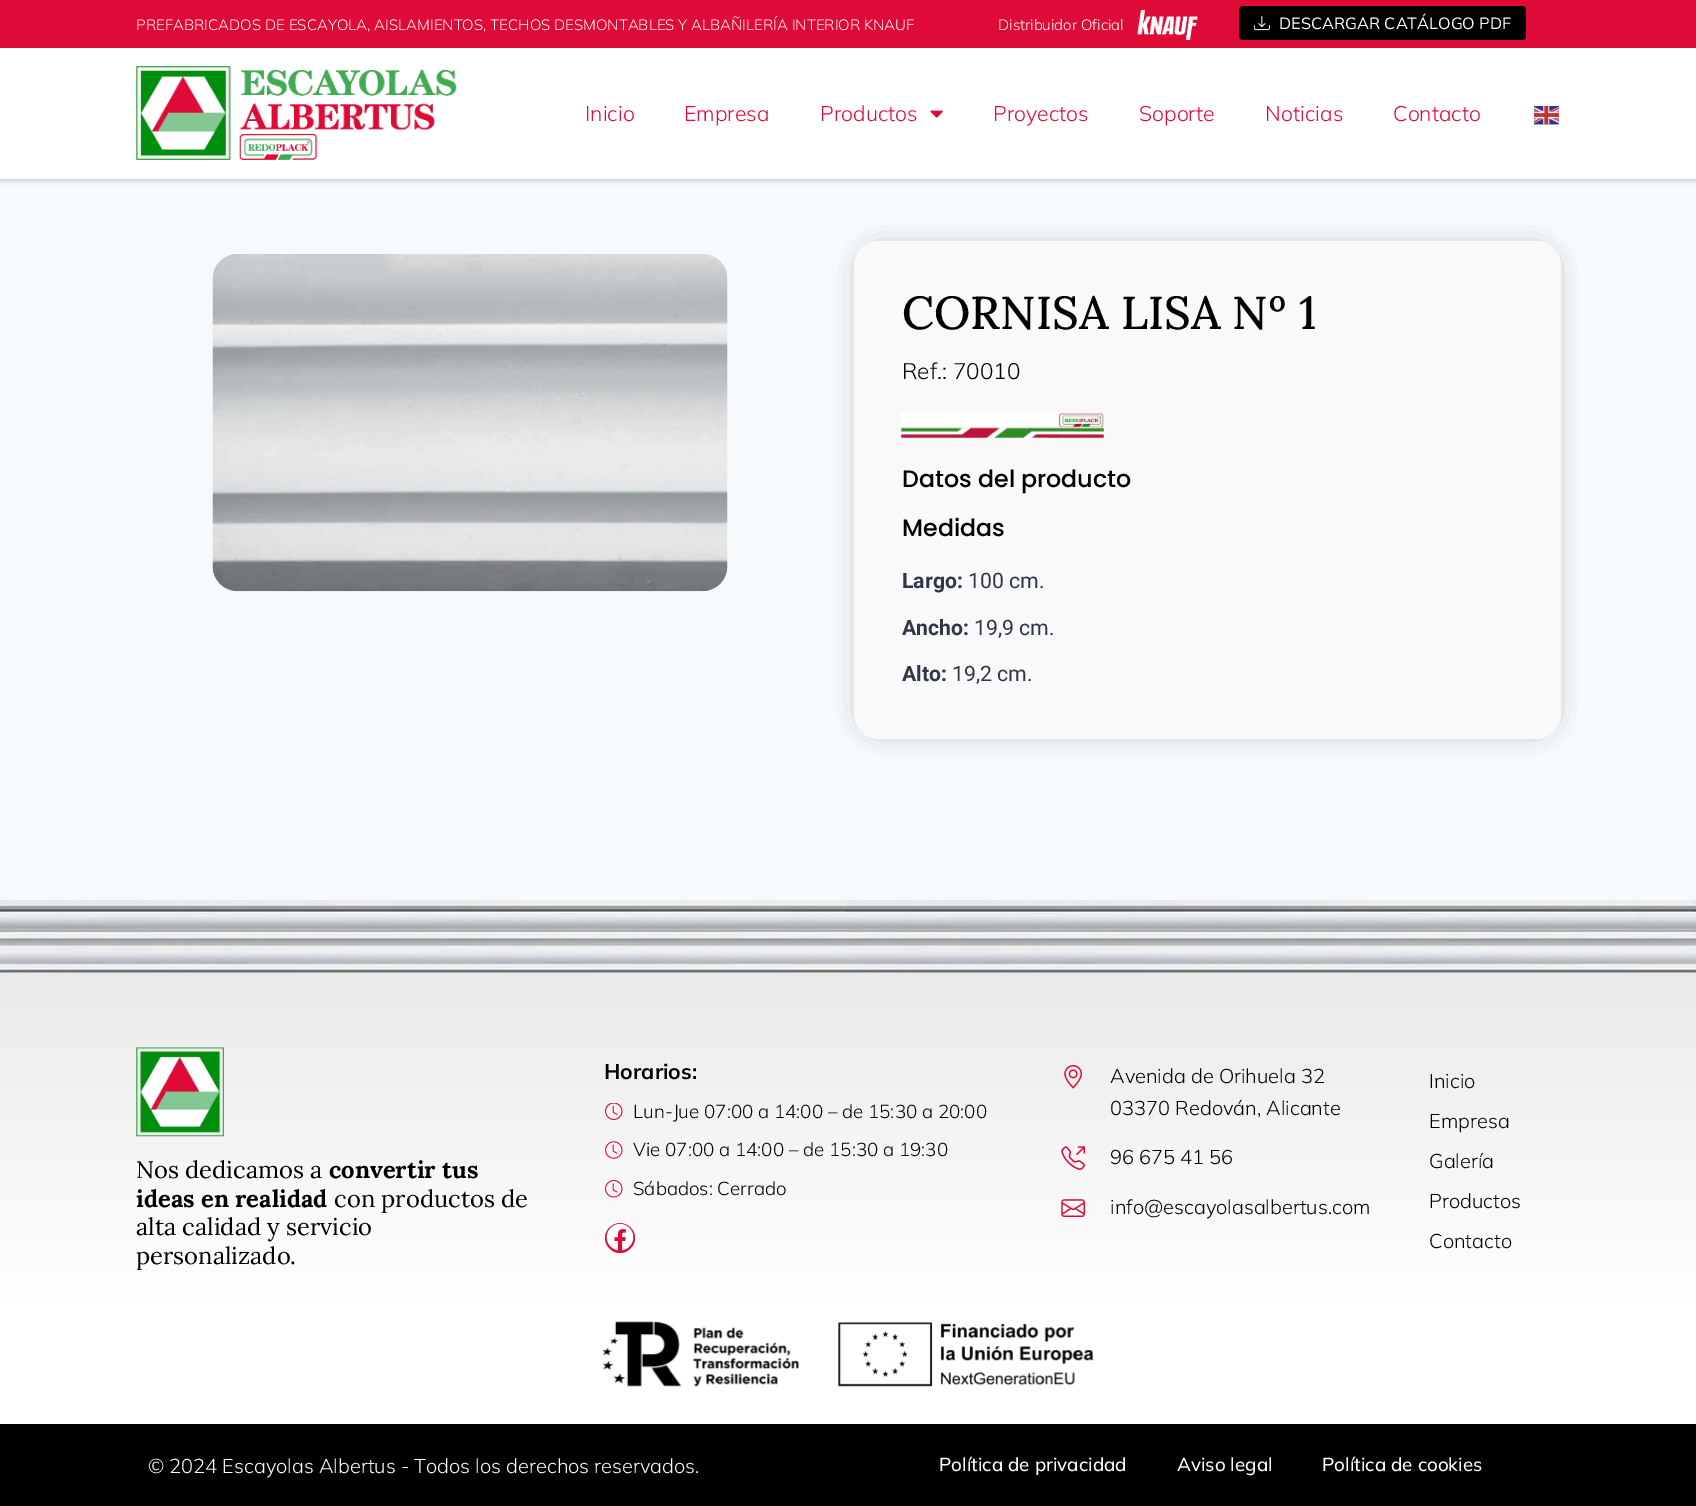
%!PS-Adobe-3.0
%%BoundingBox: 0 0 1696 1506
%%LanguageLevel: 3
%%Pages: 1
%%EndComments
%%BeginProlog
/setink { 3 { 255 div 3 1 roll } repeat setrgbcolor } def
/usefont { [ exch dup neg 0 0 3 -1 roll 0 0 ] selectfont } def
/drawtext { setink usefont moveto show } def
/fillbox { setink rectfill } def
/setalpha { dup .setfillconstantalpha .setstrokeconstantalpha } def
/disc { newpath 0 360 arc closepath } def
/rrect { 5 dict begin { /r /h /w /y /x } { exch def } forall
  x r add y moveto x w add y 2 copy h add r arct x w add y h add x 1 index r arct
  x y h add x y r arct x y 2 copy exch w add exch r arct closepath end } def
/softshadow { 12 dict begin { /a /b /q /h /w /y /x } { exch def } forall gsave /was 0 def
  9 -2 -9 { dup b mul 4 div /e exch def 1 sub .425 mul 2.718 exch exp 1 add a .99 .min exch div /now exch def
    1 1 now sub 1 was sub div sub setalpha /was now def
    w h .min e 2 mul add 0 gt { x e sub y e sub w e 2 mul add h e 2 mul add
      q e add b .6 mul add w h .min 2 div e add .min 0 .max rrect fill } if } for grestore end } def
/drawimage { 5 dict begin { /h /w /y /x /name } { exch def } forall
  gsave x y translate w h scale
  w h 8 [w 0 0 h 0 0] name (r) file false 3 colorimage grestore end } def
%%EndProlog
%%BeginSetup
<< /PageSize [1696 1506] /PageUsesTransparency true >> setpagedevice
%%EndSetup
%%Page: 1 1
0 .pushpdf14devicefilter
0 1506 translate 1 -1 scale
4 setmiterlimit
0 0 1696 1506 247 250 252 fillbox
0 0 1696 48 223 10 54 fillbox
(PREFABRICADOS DE ESCAYOLA, AISLAMIENTOS, TECHOS DESMONTABLES Y ALBAÑILERÍA INTERIOR KNAUF) 136 30 /Mulish-Light 15 255 255 255 drawtext
(Distribuidor Oficial) 998 30 /Mulish-Light 15 255 255 255 drawtext
(assets/img1.rgb) 1137 10 61 30 drawimage
0 0 0 setink
1239 6 287 34 4 rrect fill
(assets/img2.rgb) 1254 16 16 15 drawimage
(DESCARGAR CATÁLOGO PDF) 1279 29 /Mulish-Regular 16.25 255 255 255 drawtext
0 0 0 setink
0 50 1696 131 0 2.5 0.18 softshadow
0 48 1696 131 255 255 255 fillbox
(assets/img3.rgb) 136 66 321 94 drawimage
(Inicio) 585 121 /Mulish-Light 21.25 223 10 54 drawtext
(Empresa) 684 121 /Mulish-Light 21.25 223 10 54 drawtext
(Productos) 820 121 /Mulish-Light 21.25 223 10 54 drawtext
(assets/img4.rgb) 930 110 13 8 drawimage
(Proyectos) 993 121 /Mulish-Light 21.25 223 10 54 drawtext
(Soporte) 1139 121 /Mulish-Light 21.25 223 10 54 drawtext
(Noticias) 1265 121 /Mulish-Light 21.25 223 10 54 drawtext
(Contacto) 1393 121 /Mulish-Light 21.25 223 10 54 drawtext
(assets/img5.rgb) 1534 105 25 20 drawimage
(assets/img6.rgb) 212 254 516 338 drawimage
0 0 0 setink
866 254 683 472 13 13 0.5 softshadow
249 249 249 setink
854 241 707 498 25 rrect fill
(CORNISA LISA Nº 1) 902 329 /Lora-Medium 46.25 0 0 0 drawtext
(Ref.: 70010) 902 379 /Mulish-Light 22.5 0 0 0 drawtext
(assets/img7.rgb) 901 412 203 28 drawimage
(Datos del producto) 902 487 /Poppins-Medium 23.75 0 0 0 drawtext
(Medidas) 902 536 /Poppins-Medium 23.75 0 0 0 drawtext
(Largo:) 902 588 /Roboto-Bold 21.25 45 55 72 drawtext
(100 cm.) 968 588 /Roboto-Regular 21.25 45 55 72 drawtext
(Ancho:) 902 635 /Roboto-Bold 21.25 45 55 72 drawtext
(19,9 cm.) 974 635 /Roboto-Regular 21.25 45 55 72 drawtext
(Alto:) 902 681 /Roboto-Bold 21.25 45 55 72 drawtext
(19,2 cm.) 952 681 /Roboto-Regular 21.25 45 55 72 drawtext
(assets/img8.rgb) 0 900 1696 73 drawimage
gsave 0 973 moveto 1696 973 lineto 1696 1304 lineto 0 1304 lineto closepath clip newpath
<< /ShadingType 2 /ColorSpace /DeviceRGB /Coords [848 972 848 1304] /Extend [true true] /Function << /FunctionType 2 /Domain [0 1] /C0 [0.918 0.918 0.918] /C1 [1 1 1] /N 1 >> >> shfill grestore
(assets/img9.rgb) 136 1047 88 90 drawimage
(Nos dedicamos a) 136 1178 /Lora-Regular 23.75 0 0 0 drawtext
(convertir tus) 329 1178 /Lora-Bold 23.75 0 0 0 drawtext
(ideas en realidad) 136 1207 /Lora-Bold 23.75 0 0 0 drawtext
(con productos de) 334 1207 /Lora-Regular 23.75 0 0 0 drawtext
(alta calidad y servicio) 136 1235 /Lora-Regular 23.75 0 0 0 drawtext
(personalizado.) 136 1264 /Lora-Regular 23.75 0 0 0 drawtext
(Horarios:) 604 1079 /Mulish-Bold 21.25 0 0 0 drawtext
(assets/img10.rgb) 605 1103 18 17 drawimage
(Lun-Jue 07:00 a 14:00 – de 15:30 a 20:00) 633 1118 /Mulish-Light 18.75 0 0 0 drawtext
(assets/img11.rgb) 605 1141 18 18 drawimage
(Vie 07:00 a 14:00 – de 15:30 a 19:30) 633 1156 /Mulish-Light 18.75 0 0 0 drawtext
(assets/img12.rgb) 605 1180 18 18 drawimage
(Sábados: Cerrado) 633 1195 /Mulish-Light 18.75 0 0 0 drawtext
223 10 54 setink
620 1238 15 disc fill
(assets/img13.rgb) 606 1223 28 28 drawimage
(assets/img14.rgb) 1064 1065 18 24 drawimage
(Avenida de Orihuela 32) 1110 1083 /Mulish-Light 20 0 0 0 drawtext
(03370 Redován, Alicante) 1110 1115 /Mulish-Light 20 0 0 0 drawtext
(assets/img15.rgb) 1061 1146 24 24 drawimage
(96 675 41 56) 1110 1164 /Mulish-Light 20 0 0 0 drawtext
(assets/img16.rgb) 1061 1199 24 18 drawimage
(info@escayolasalbertus.com) 1110 1214 /Mulish-Light 20 0 0 0 drawtext
(Inicio) 1429 1088 /Mulish-Light 20 0 0 0 drawtext
(Empresa) 1429 1128 /Mulish-Light 20 0 0 0 drawtext
(Galería) 1429 1168 /Mulish-Light 20 0 0 0 drawtext
(Productos) 1429 1208 /Mulish-Light 20 0 0 0 drawtext
(Contacto) 1429 1248 /Mulish-Light 20 0 0 0 drawtext
0 1304 1696 120 255 255 255 fillbox
(assets/img17.rgb) 602 1321 492 66 drawimage
0 1424 1696 82 0 0 0 fillbox
(© 2024 Escayolas Albertus - Todos los derechos reservados.) 148 1473 /Mulish-Light 20 255 255 255 drawtext
(Política de privacidad) 939 1471 /Mulish-Medium 18.75 255 255 255 drawtext
(Aviso legal) 1177 1471 /Mulish-Medium 18.75 255 255 255 drawtext
(Política de cookies) 1322 1471 /Mulish-Medium 18.75 255 255 255 drawtext
.poppdf14devicefilter showpage
%%EOF
